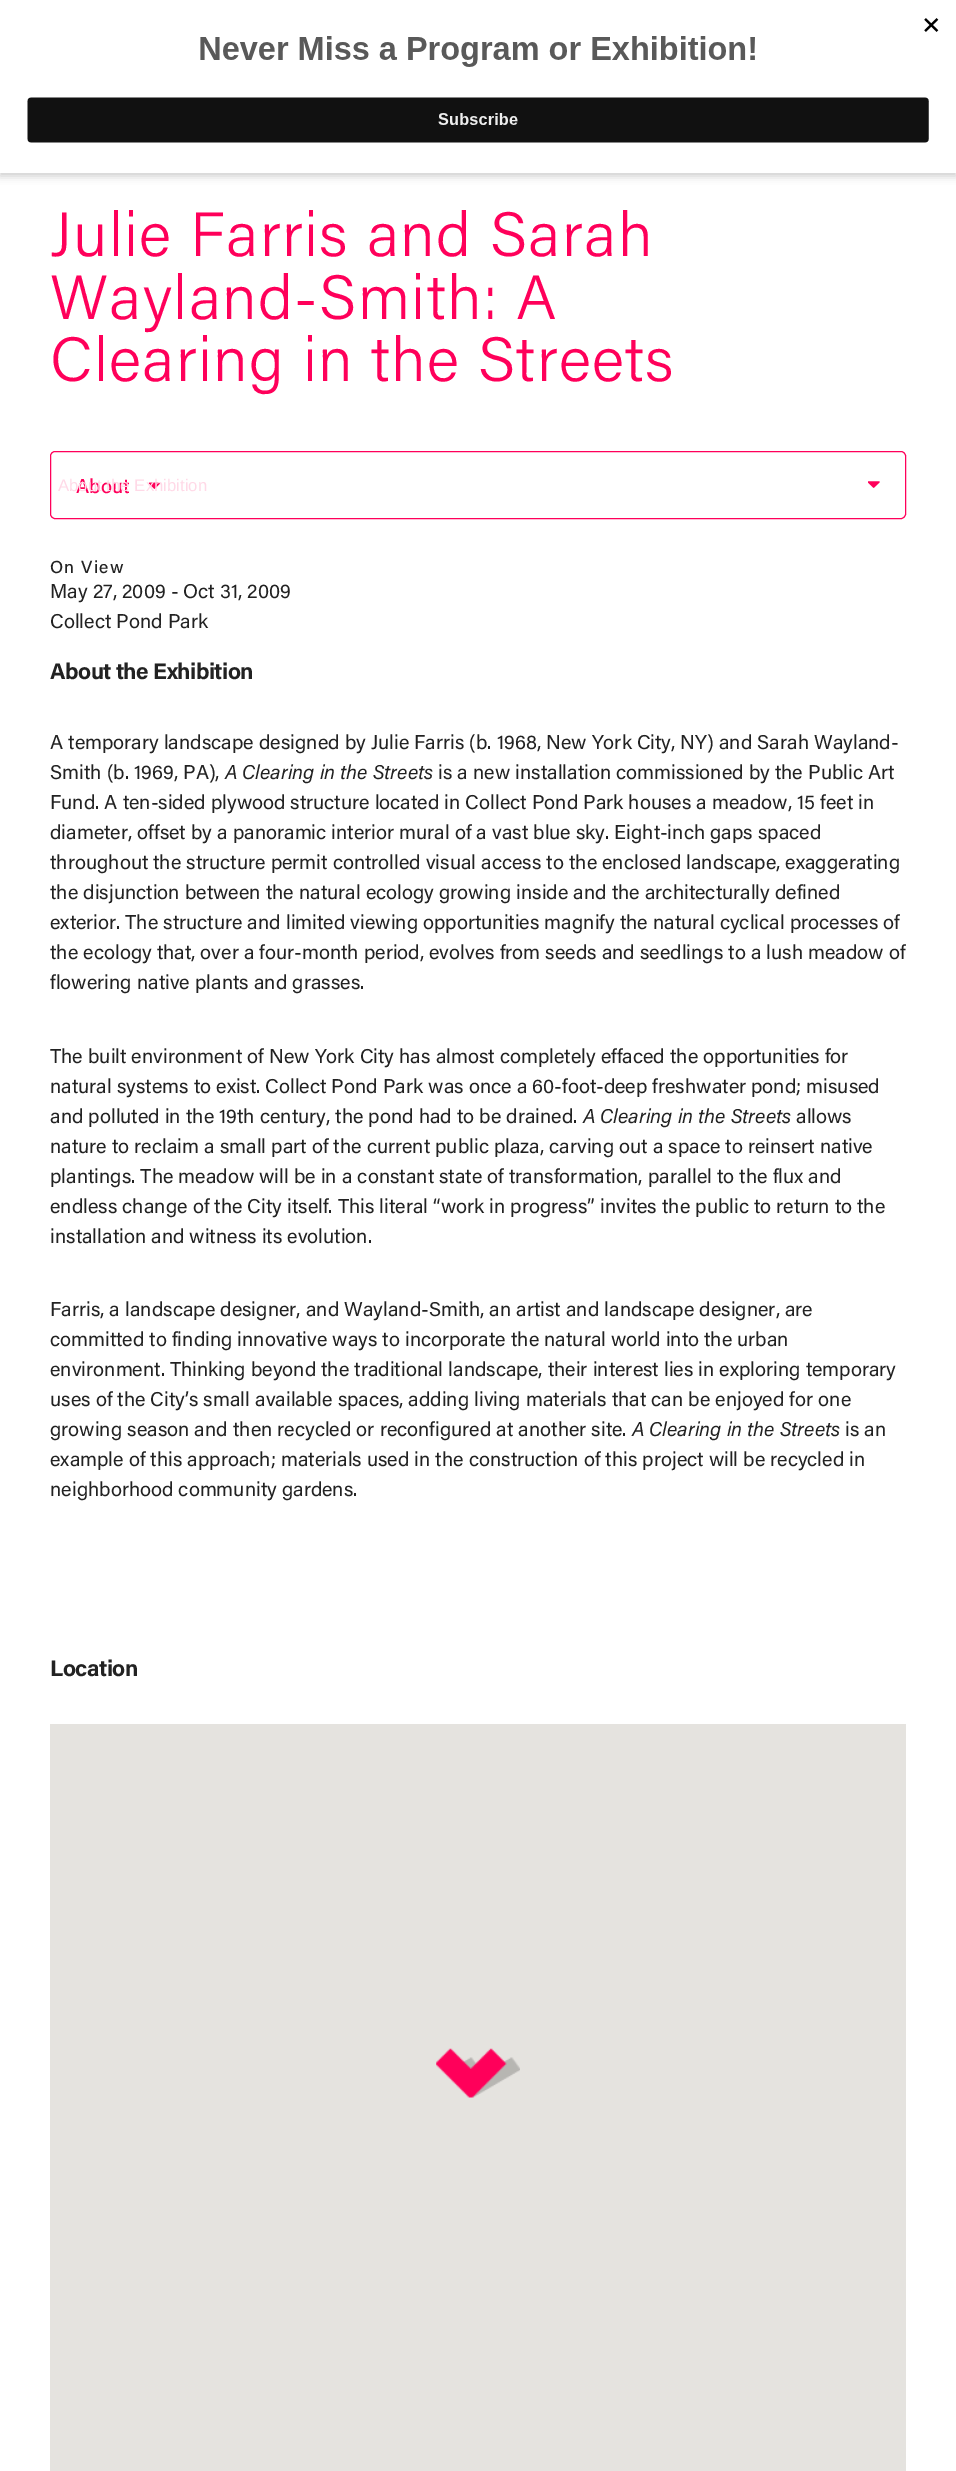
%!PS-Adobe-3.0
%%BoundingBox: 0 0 956 2471
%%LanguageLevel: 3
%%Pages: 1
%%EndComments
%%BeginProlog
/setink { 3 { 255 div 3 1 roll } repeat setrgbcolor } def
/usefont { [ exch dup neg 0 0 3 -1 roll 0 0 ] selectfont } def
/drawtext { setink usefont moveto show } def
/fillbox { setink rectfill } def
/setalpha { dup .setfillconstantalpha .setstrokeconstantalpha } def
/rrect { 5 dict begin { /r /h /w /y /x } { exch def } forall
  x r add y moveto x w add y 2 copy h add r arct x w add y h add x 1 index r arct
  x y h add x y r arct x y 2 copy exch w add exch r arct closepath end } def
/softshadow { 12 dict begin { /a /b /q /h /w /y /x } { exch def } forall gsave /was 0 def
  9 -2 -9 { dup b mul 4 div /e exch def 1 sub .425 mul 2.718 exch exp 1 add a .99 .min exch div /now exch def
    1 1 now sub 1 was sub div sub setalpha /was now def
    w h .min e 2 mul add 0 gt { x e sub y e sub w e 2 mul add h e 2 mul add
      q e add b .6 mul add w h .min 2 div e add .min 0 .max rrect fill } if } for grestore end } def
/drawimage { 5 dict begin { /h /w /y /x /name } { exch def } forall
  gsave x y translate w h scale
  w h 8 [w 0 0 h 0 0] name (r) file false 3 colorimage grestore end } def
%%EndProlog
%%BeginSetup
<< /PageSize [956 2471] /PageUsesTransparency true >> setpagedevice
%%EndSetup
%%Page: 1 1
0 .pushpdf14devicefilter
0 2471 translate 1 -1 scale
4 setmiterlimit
0 0 956 2471 255 255 255 fillbox
0 0 0 setink
0 4 956 172 0 4 0.2 softshadow
0 0 956 173 255 255 255 fillbox
(assets/img1.rgb) 27 18 912 125 drawimage
/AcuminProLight-Light 62.5 usefont
255 0 90 setink
50 256 moveto 1.25 0 (Julie Farris and Sarah) ashow
50 319 moveto 1.25 0 (Wayland-Smith: A) ashow
50 381 moveto 1.25 0 (Clearing in the Streets) ashow
(assets/img2.rgb) 868 481 12 7 drawimage
50.5 451.5 855 67 4.5 rrect stroke
(About) 76 493 /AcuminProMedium-Medium 20 255 0 90 drawtext
(assets/img3.rgb) 148 482 13 7 drawimage
(About the Exhibition) 58 491 /LiberationSans-Regular 16.75 255 217 231 drawtext
/AcuminProMedium-Medium 17.5 usefont
34 34 34 setink
50 573 moveto 1.25 0 (On View) ashow
(May 27, 2009 - Oct 31, 2009) 50 598 /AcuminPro-Regular 20 34 34 34 drawtext
(Collect Pond Park) 50 628 /AcuminPro-Regular 20 34 34 34 drawtext
/AcuminPro-Bold 22.5 usefont
50 679 moveto -0.5 0 (About the Exhibition) ashow
(A temporary landscape designed by Julie Farris \(b. 1968, New York City, NY\) and Sarah Wayland-) 50 749 /AcuminPro-Regular 20 34 34 34 drawtext
(Smith \(b. 1969, PA\),) 50 779 /AcuminPro-Regular 20 34 34 34 drawtext
(A Clearing in the Streets) 225 779 /AcuminPro-Italic 20 34 34 34 drawtext
(is a new installation commissioned by the Public Art) 438 779 /AcuminPro-Regular 20 34 34 34 drawtext
(Fund. A ten-sided plywood structure located in Collect Pond Park houses a meadow, 15 feet in) 50 809 /AcuminPro-Regular 20 34 34 34 drawtext
(diameter, offset by a panoramic interior mural of a vast blue sky. Eight-inch gaps spaced) 50 839 /AcuminPro-Regular 20 34 34 34 drawtext
(throughout the structure permit controlled visual access to the enclosed landscape, exaggerating) 50 869 /AcuminPro-Regular 20 34 34 34 drawtext
(the disjunction between the natural ecology growing inside and the architecturally defined) 50 899 /AcuminPro-Regular 20 34 34 34 drawtext
(exterior. The structure and limited viewing opportunities magnify the natural cyclical processes of) 50 929 /AcuminPro-Regular 20 34 34 34 drawtext
(the ecology that, over a four-month period, evolves from seeds and seedlings to a lush meadow of) 50 959 /AcuminPro-Regular 20 34 34 34 drawtext
(flowering native plants and grasses.) 50 989 /AcuminPro-Regular 20 34 34 34 drawtext
(The built environment of New York City has almost completely effaced the opportunities for) 50 1063 /AcuminPro-Regular 20 34 34 34 drawtext
(natural systems to exist. Collect Pond Park was once a 60-foot-deep freshwater pond; misused) 50 1093 /AcuminPro-Regular 20 34 34 34 drawtext
(and polluted in the 19th century, the pond had to be drained.) 50 1123 /AcuminPro-Regular 20 34 34 34 drawtext
(A Clearing in the Streets) 583 1123 /AcuminPro-Italic 20 34 34 34 drawtext
(allows) 796 1123 /AcuminPro-Regular 20 34 34 34 drawtext
(nature to reclaim a small part of the current public plaza, carving out a space to reinsert native) 50 1153 /AcuminPro-Regular 20 34 34 34 drawtext
(plantings. The meadow will be in a constant state of transformation, parallel to the flux and) 50 1183 /AcuminPro-Regular 20 34 34 34 drawtext
(endless change of the City itself. This literal “work in progress” invites the public to return to the) 50 1213 /AcuminPro-Regular 20 34 34 34 drawtext
(installation and witness its evolution.) 50 1243 /AcuminPro-Regular 20 34 34 34 drawtext
(Farris, a landscape designer, and Wayland-Smith, an artist and landscape designer, are) 50 1316 /AcuminPro-Regular 20 34 34 34 drawtext
(committed to finding innovative ways to incorporate the natural world into the urban) 50 1346 /AcuminPro-Regular 20 34 34 34 drawtext
(environment. Thinking beyond the traditional landscape, their interest lies in exploring temporary) 50 1376 /AcuminPro-Regular 20 34 34 34 drawtext
(uses of the City’s small available spaces, adding living materials that can be enjoyed for one) 50 1406 /AcuminPro-Regular 20 34 34 34 drawtext
(growing season and then recycled or reconfigured at another site.) 50 1436 /AcuminPro-Regular 20 34 34 34 drawtext
(A Clearing in the Streets) 632 1436 /AcuminPro-Italic 20 34 34 34 drawtext
(is an) 845 1436 /AcuminPro-Regular 20 34 34 34 drawtext
(example of this approach; materials used in the construction of this project will be recycled in) 50 1466 /AcuminPro-Regular 20 34 34 34 drawtext
(neighborhood community gardens.) 50 1496 /AcuminPro-Regular 20 34 34 34 drawtext
/AcuminPro-Bold 22.5 usefont
50 1676 moveto -0.5 0 (Location) ashow
50 1724 856 747 229 227 223 fillbox
(assets/img4.rgb) 436 2048 84 50 drawimage
.poppdf14devicefilter showpage
%%EOF
